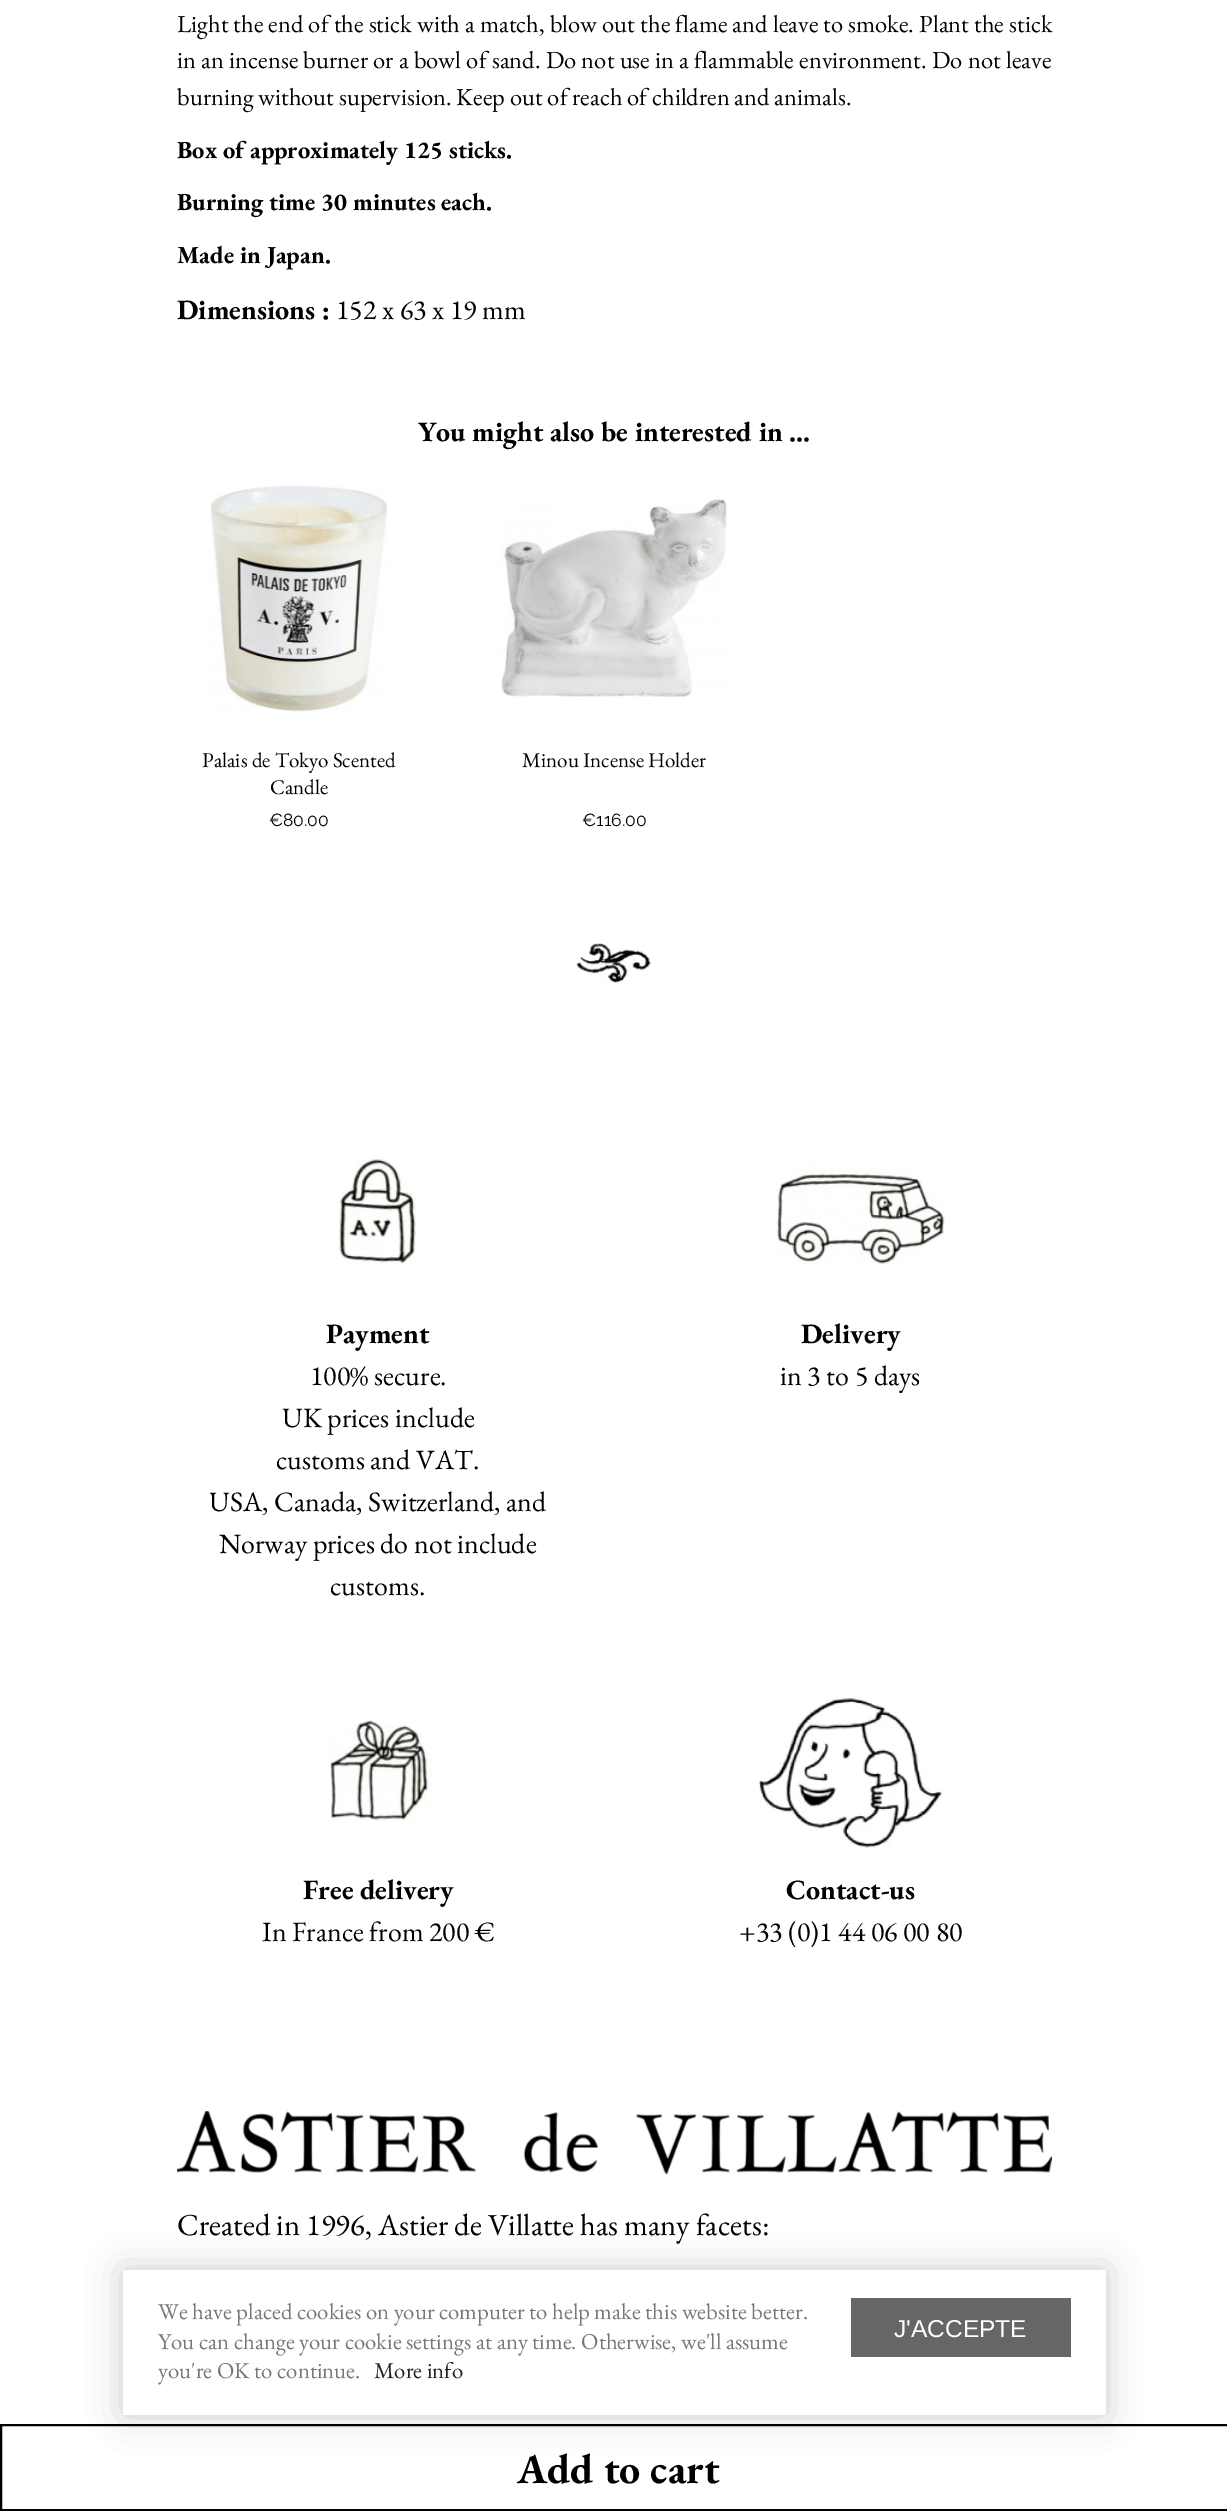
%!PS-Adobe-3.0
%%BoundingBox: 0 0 1227 2511
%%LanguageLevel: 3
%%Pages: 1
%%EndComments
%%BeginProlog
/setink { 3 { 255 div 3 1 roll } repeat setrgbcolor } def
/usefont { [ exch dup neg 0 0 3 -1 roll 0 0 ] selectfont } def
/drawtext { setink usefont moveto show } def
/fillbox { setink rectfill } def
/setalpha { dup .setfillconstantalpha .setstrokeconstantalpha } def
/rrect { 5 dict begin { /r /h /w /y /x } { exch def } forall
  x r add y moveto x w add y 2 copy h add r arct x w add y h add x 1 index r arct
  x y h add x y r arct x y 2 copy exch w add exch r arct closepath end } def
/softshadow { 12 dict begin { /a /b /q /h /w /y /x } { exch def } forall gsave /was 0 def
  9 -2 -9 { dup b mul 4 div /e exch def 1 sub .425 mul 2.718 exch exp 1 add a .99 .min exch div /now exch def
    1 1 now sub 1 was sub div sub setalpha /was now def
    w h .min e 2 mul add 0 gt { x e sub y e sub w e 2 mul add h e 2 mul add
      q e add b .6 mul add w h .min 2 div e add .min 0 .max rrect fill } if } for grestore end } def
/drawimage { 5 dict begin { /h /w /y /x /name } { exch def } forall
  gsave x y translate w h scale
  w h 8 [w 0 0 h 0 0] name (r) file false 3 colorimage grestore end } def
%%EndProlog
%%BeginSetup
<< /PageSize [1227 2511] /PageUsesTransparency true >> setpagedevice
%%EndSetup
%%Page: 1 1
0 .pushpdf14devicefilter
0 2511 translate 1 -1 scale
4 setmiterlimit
0 0 1227 2511 255 255 255 fillbox
/EBGaramond-Regular 24.5 usefont
0 0 0 setink
177 32 moveto 0.25 0 32 (Light the end of the stick with a match, blow out the flame and leave to smoke. Plant the stick) widthshow
177 68 moveto 0.4 0 32 (in an incense burner or a bowl of sand. Do not use in a flammable environment. Do not leave) widthshow
(burning without supervision. Keep out of reach of children and animals.) 177 105 /EBGaramond-Regular 24.5 0 0 0 drawtext
(Box of approximately 125 sticks.) 177 158 /EBGaramond-Bold 24.5 0 0 0 drawtext
(Burning time 30 minutes each.) 177 210 /EBGaramond-Bold 24.5 0 0 0 drawtext
(Made in Japan.) 177 263 /EBGaramond-Bold 24.5 0 0 0 drawtext
(Dimensions :) 177 319 /EBGaramond-Bold 28 0 0 0 drawtext
(152 x 63 x 19 mm) 336 319 /EBGaramond-Regular 28 0 0 0 drawtext
2 setlinewidth
1 2425 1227 85 rectstroke
(Add to cart) 517 2483 /EBGaramond-Bold 42 0 0 0 drawtext
(You might also be interested in ...) 418 441 /EBGaramond-Bold 28 0 0 0 drawtext
(assets/img1.rgb) 210 485 178 227 drawimage
(Palais de Tokyo Scented) 202 767 /EBGaramond-Regular 21 0 0 0 drawtext
(Candle) 270 794 /EBGaramond-Regular 21 0 0 0 drawtext
(€80.00) 269 826 /Raleway-Regular 17.5 0 0 0 drawtext
(assets/img2.rgb) 501 499 226 198 drawimage
(Minou Incense Holder) 522 767 /EBGaramond-Regular 21 0 0 0 drawtext
(€116.00) 582 826 /Raleway-Regular 17.5 0 0 0 drawtext
(assets/img3.rgb) 576 943 76 40 drawimage
(assets/img4.rgb) 339 1158 78 106 drawimage
(Payment) 326 1343 /EBGaramond-Bold 28 0 0 0 drawtext
(100% secure.) 310 1385 /EBGaramond-Regular 28 0 0 0 drawtext
(UK prices include) 282 1427 /EBGaramond-Regular 28 0 0 0 drawtext
(customs and VAT.) 276 1469 /EBGaramond-Regular 28 0 0 0 drawtext
(USA, Canada, Switzerland, and) 209 1511 /EBGaramond-Regular 28 0 0 0 drawtext
(Norway prices do not include) 219 1553 /EBGaramond-Regular 28 0 0 0 drawtext
(customs.) 330 1595 /EBGaramond-Regular 28 0 0 0 drawtext
(assets/img5.rgb) 774 1163 171 101 drawimage
(Delivery) 801 1343 /EBGaramond-Bold 28 0 0 0 drawtext
(in 3 to 5 days) 780 1385 /EBGaramond-Regular 28 0 0 0 drawtext
(assets/img6.rgb) 330 1720 102 101 drawimage
(Free delivery) 303 1899 /EBGaramond-Bold 28 0 0 0 drawtext
(In France from 200 €) 262 1941 /EBGaramond-Regular 28 0 0 0 drawtext
(assets/img7.rgb) 759 1696 183 152 drawimage
(Contact-us) 786 1899 /EBGaramond-Bold 28 0 0 0 drawtext
(+33 \(0\)1 44 06 00 80) 739 1941 /EBGaramond-Regular 28 0 0 0 drawtext
(assets/img8.rgb) 177 2111 875 63 drawimage
(Created in 1996, Astier de Villatte has many facets:) 177 2235 /EBGaramond-Regular 30.6 0 0 0 drawtext
123 2270 983 145 0 17.5 0.2 softshadow
123 2270 983 145 255 255 255 fillbox
(We have placed cookies on your computer to help make this website better.) 158 2319 /EBGaramond-Regular 22.75 119 119 119 drawtext
851 2298 220 59 102 102 102 fillbox
(J'ACCEPTE) 894 2337 /LiberationSans-Regular 24.5 255 255 255 drawtext
(You can change your cookie settings at any time. Otherwise, we'll assume) 158 2349 /EBGaramond-Regular 22.75 119 119 119 drawtext
(you're OK to continue.) 158 2378 /EBGaramond-Regular 22.75 119 119 119 drawtext
(More info) 374 2378 /EBGaramond-Regular 22.75 34 34 34 drawtext
.poppdf14devicefilter showpage
%%EOF
